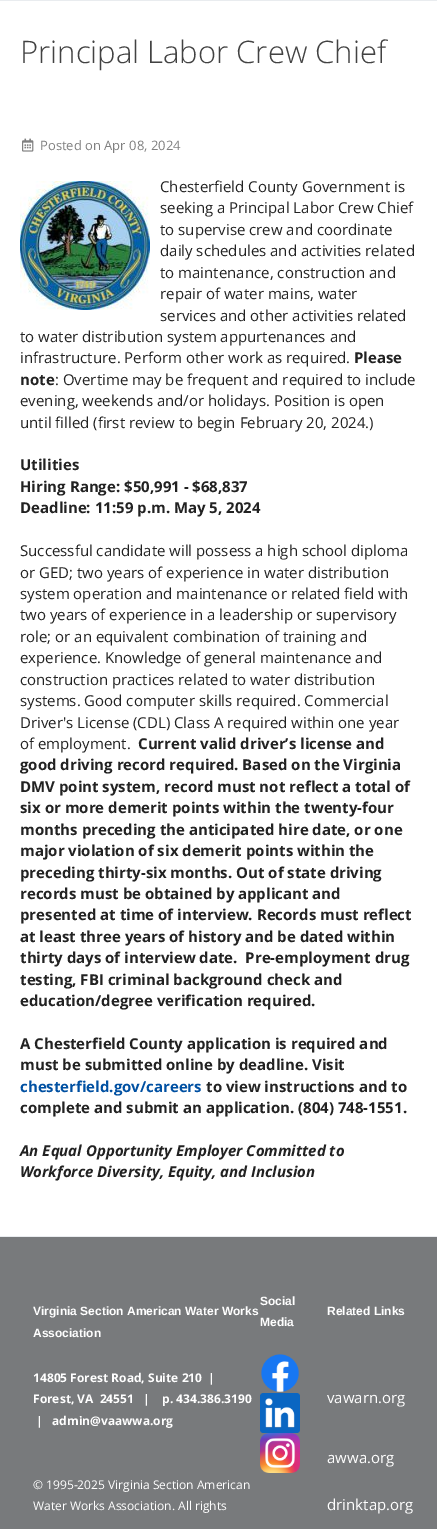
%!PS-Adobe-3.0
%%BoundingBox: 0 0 437 1529
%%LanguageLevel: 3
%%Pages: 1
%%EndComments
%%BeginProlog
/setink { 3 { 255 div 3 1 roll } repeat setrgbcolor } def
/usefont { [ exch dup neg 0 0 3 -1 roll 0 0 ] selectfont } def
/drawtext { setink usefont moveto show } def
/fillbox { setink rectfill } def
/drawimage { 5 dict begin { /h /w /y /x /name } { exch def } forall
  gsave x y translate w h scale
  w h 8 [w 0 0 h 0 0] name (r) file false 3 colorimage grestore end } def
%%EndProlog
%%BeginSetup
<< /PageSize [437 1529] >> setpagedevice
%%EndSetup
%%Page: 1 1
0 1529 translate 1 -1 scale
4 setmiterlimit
0 0 437 1529 255 255 255 fillbox
0 0 437 1 233 236 239 fillbox
(Principal Labor Crew Chief) 20 63 /OpenSans-Light 31 66 66 66 drawtext
(assets/img1.rgb) 22 138 12 14 drawimage
(Posted on Apr 08, 2024) 40 150 /OpenSans-Regular 13 128 128 128 drawtext
(Chesterfield County Government is) 160 192 /OpenSans-Regular 15 34 34 34 drawtext
(seeking a Principal Labor Crew Chief) 160 213 /OpenSans-Regular 15 34 34 34 drawtext
(to supervise crew and coordinate) 160 235 /OpenSans-Regular 15 34 34 34 drawtext
(daily schedules and activities related) 160 256 /OpenSans-Regular 15 34 34 34 drawtext
(to maintenance, construction and) 160 278 /OpenSans-Regular 15 34 34 34 drawtext
(repair of water mains, water) 160 299 /OpenSans-Regular 15 34 34 34 drawtext
(services and other activities related) 160 321 /OpenSans-Regular 15 34 34 34 drawtext
(to water distribution system appurtenances and) 20 342 /OpenSans-Regular 15 34 34 34 drawtext
(infrastructure. Perform other work as required.) 20 363 /OpenSans-Regular 15 34 34 34 drawtext
(Please) 354 363 /OpenSans-Bold 15 34 34 34 drawtext
(note) 20 385 /OpenSans-Bold 15 34 34 34 drawtext
(: Overtime may be frequent and required to include) 55 385 /OpenSans-Regular 15 34 34 34 drawtext
(evening, weekends and/or holidays. Position is open) 20 406 /OpenSans-Regular 15 34 34 34 drawtext
(until filled \(first review to begin February 20, 2024.\)) 20 428 /OpenSans-Regular 15 34 34 34 drawtext
(assets/img2.rgb) 20 181 130 129 drawimage
(Utilities) 20 470 /OpenSans-Bold 15 34 34 34 drawtext
(Hiring Range: $50,991 - $68,837) 20 492 /OpenSans-Bold 15 34 34 34 drawtext
(Deadline: 11:59 p.m. May 5, 2024) 20 513 /OpenSans-Bold 15 34 34 34 drawtext
(Successful candidate will possess a high school diploma) 20 556 /OpenSans-Regular 15 34 34 34 drawtext
(or GED; two years of experience in water distribution) 20 578 /OpenSans-Regular 15 34 34 34 drawtext
(system operation and maintenance or related field with) 20 599 /OpenSans-Regular 15 34 34 34 drawtext
(two years of experience in a leadership or supervisory) 20 620 /OpenSans-Regular 15 34 34 34 drawtext
(role; or an equivalent combination of training and) 20 642 /OpenSans-Regular 15 34 34 34 drawtext
(experience. Knowledge of general maintenance and) 20 663 /OpenSans-Regular 15 34 34 34 drawtext
(construction practices related to water distribution) 20 685 /OpenSans-Regular 15 34 34 34 drawtext
(systems. Good computer skills required. Commercial) 20 706 /OpenSans-Regular 15 34 34 34 drawtext
(Driver's License \(CDL\) Class A required within one year) 20 728 /OpenSans-Regular 15 34 34 34 drawtext
(of employment.) 20 749 /OpenSans-Regular 15 34 34 34 drawtext
(Current valid driver’s license and) 138 749 /OpenSans-Bold 15 34 34 34 drawtext
(good driving record required. Based on the Virginia) 20 770 /OpenSans-Bold 15 34 34 34 drawtext
(DMV point system, record must not reflect a total of) 20 792 /OpenSans-Bold 15 34 34 34 drawtext
(six or more demerit points within the twenty-four) 20 813 /OpenSans-Bold 15 34 34 34 drawtext
(months preceding the anticipated hire date, or one) 20 835 /OpenSans-Bold 15 34 34 34 drawtext
(major violation of six demerit points within the) 20 856 /OpenSans-Bold 15 34 34 34 drawtext
(preceding thirty-six months. Out of state driving) 20 878 /OpenSans-Bold 15 34 34 34 drawtext
(records must be obtained by applicant and) 20 899 /OpenSans-Bold 15 34 34 34 drawtext
(presented at time of interview. Records must reflect) 20 920 /OpenSans-Bold 15 34 34 34 drawtext
(at least three years of history and be dated within) 20 942 /OpenSans-Bold 15 34 34 34 drawtext
(thirty days of interview date.  Pre-employment drug) 20 963 /OpenSans-Bold 15 34 34 34 drawtext
(testing, FBI criminal background check and) 20 985 /OpenSans-Bold 15 34 34 34 drawtext
(education/degree verification required.) 20 1006 /OpenSans-Bold 15 34 34 34 drawtext
(A Chesterfield County application is required and) 20 1049 /OpenSans-Bold 15 34 34 34 drawtext
(must be submitted online by deadline. Visit) 20 1070 /OpenSans-Bold 15 34 34 34 drawtext
(chesterfield.gov/careers) 20 1092 /OpenSans-Bold 15 0 80 162 drawtext
(to view instructions and to) 206 1092 /OpenSans-Bold 15 34 34 34 drawtext
(complete and submit an application. \(804\) 748-1551.) 20 1113 /OpenSans-Bold 15 34 34 34 drawtext
(An Equal Opportunity Employer Committed to) 20 1156 /OpenSans-BoldItalic 15 34 34 34 drawtext
(Workforce Diversity, Equity, and Inclusion) 20 1177 /OpenSans-BoldItalic 15 34 34 34 drawtext
0 1237 437 292 120 122 124 fillbox
0 1236 437 1 233 236 239 fillbox
(Virginia Section American Water Works) 33 1315 /LiberationSans-Bold 12 255 255 255 drawtext
(Association) 33 1337 /LiberationSans-Bold 12 255 255 255 drawtext
(Social) 260 1305 /LiberationSans-Bold 12 255 255 255 drawtext
(Media) 260 1326 /LiberationSans-Bold 12 255 255 255 drawtext
(Related Links) 327 1315 /LiberationSans-Bold 12 255 255 255 drawtext
(14805 Forest Road, Suite 210  |) 33 1382 /OpenSans-Bold 12 255 255 255 drawtext
(Forest, VA  24551   |    p. 434.386.3190) 33 1403 /OpenSans-Bold 12 255 255 255 drawtext
(|   admin@vaawwa.org) 36 1425 /OpenSans-Bold 12 255 255 255 drawtext
(assets/img3.rgb) 261 1354 38 38 drawimage
(assets/img4.rgb) 260 1393 40 40 drawimage
(assets/img5.rgb) 260 1433 40 40 drawimage
(vawarn.org) 327 1403 /OpenSans-Regular 15 255 255 255 drawtext
(awwa.org) 327 1463 /OpenSans-Regular 15 255 255 255 drawtext
(© 1995-2025 Virginia Section American) 33 1489 /OpenSans-Regular 12 255 255 255 drawtext
(Water Works Association. All rights) 33 1510 /OpenSans-Regular 12 255 255 255 drawtext
(drinktap.org) 327 1510 /OpenSans-Regular 15 255 255 255 drawtext
showpage
%%EOF
